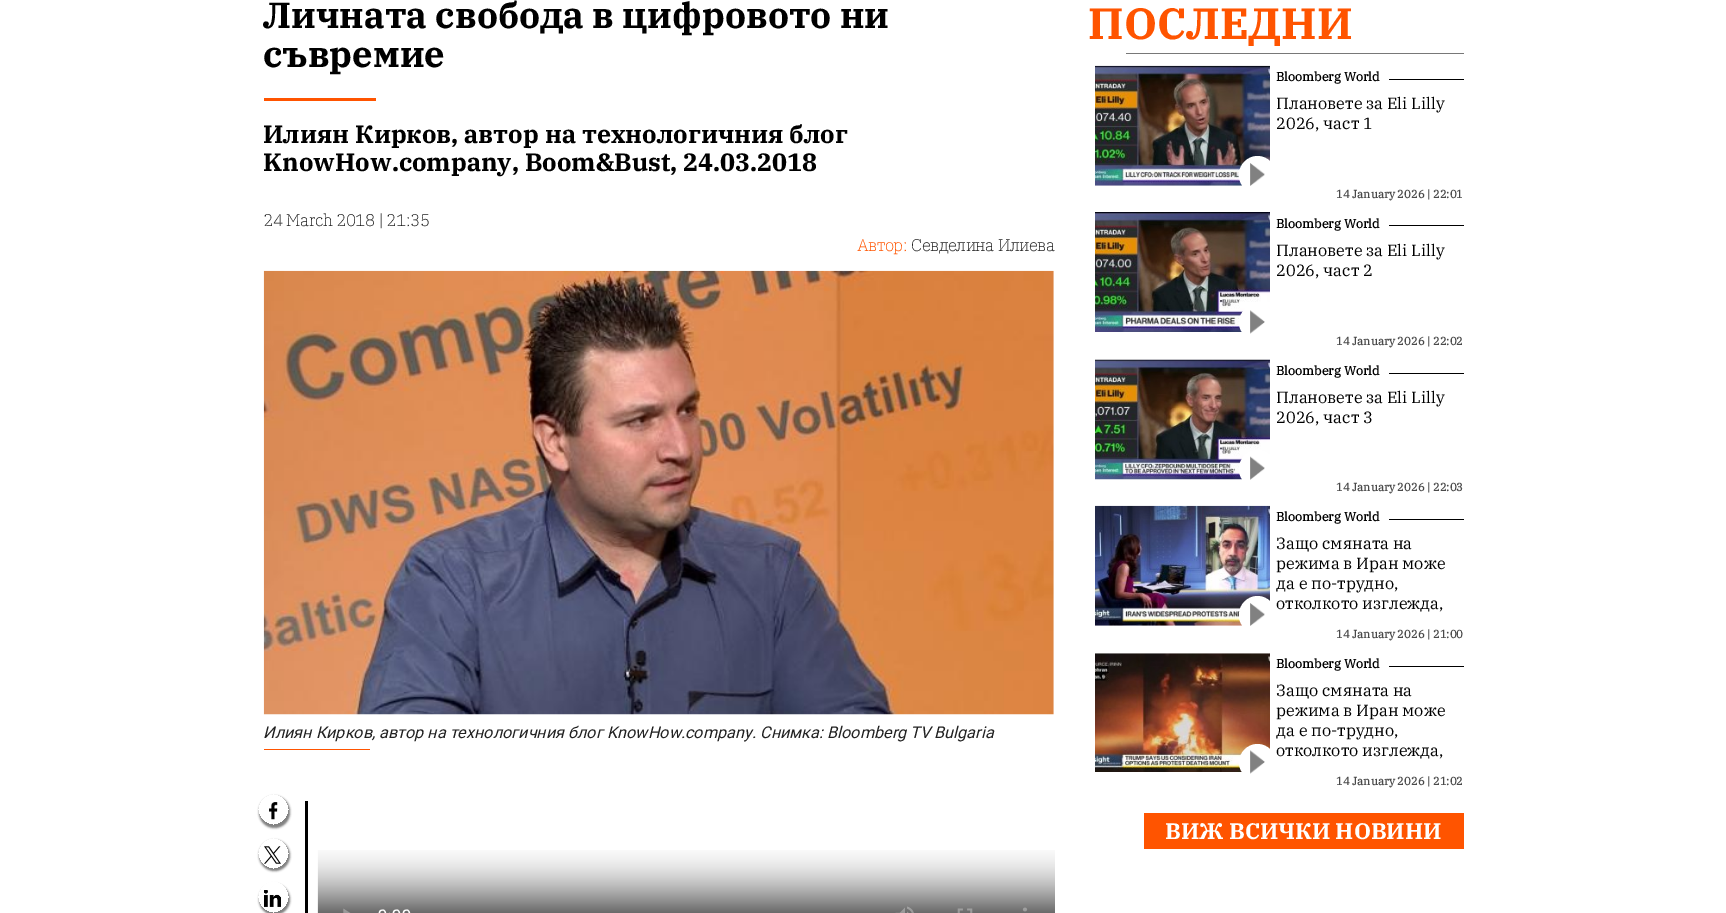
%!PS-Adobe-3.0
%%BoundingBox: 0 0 1726 913
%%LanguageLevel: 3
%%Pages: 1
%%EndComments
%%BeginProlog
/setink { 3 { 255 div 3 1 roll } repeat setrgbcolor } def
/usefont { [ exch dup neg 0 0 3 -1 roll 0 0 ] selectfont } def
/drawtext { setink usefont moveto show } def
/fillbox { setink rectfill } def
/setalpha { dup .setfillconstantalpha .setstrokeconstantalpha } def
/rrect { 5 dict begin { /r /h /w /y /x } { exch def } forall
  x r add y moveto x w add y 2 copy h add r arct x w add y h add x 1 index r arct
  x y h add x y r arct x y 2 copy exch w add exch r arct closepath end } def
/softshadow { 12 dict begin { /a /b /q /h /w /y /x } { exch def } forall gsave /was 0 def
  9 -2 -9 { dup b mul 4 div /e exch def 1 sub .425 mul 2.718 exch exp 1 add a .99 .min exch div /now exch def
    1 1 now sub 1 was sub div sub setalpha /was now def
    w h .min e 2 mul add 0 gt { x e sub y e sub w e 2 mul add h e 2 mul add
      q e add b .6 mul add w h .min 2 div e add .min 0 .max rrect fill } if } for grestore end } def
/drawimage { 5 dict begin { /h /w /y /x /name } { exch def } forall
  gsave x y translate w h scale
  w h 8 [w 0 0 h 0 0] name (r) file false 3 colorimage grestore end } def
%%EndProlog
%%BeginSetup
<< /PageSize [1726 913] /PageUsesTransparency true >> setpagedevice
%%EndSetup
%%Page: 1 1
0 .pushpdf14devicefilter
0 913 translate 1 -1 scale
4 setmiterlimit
0 0 1726 913 255 255 255 fillbox
(Личната свобода в цифровото ни) 263 28 /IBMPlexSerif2-Bold 36.25 0 0 0 drawtext
(съвремие) 263 67 /IBMPlexSerif2-Bold 36.25 0 0 0 drawtext
264 98 112 3 255 84 0 fillbox
(Илиян Кирков, автор на технологичния блог) 263 143 /IBMPlexSerif2-Bold 25 0 0 0 drawtext
(KnowHow.company, Boom&Bust, 24.03.2018) 263 171 /IBMPlexSerif2-Bold 25 0 0 0 drawtext
(24 March 2018 | 21:35) 263 226 /IBMPlexSerif-Bold 16.25 34 34 34 drawtext
(Автор:) 857 251 /IBMPlexSerif-Bold 16.25 255 84 0 drawtext
(Севделина Илиева) 911 251 /IBMPlexSerif-Bold 16.25 34 34 34 drawtext
(assets/img1.rgb) 263 270 791 445 drawimage
(Илиян Кирков) 263 738 /Roboto-Italic 16.25 34 34 34 drawtext
(автор на технологичния блог) 379 738 /Roboto-Italic 16.25 34 34 34 drawtext
(KnowHow.company.) 607 738 /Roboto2-Italic 16.25 34 34 34 drawtext
(Снимка) 760 738 /Roboto-Italic 16.25 34 34 34 drawtext
(: Bloomberg TV Bulgaria) 819 738 /Roboto2-Italic 16.25 34 34 34 drawtext
(,) 372 738 /Roboto2-Italic 16.25 34 34 34 drawtext
264 749 106 1 255 84 0 fillbox
gsave
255 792 moveto 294 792 lineto 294 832 lineto 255 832 lineto closepath 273.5 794 moveto 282 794 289 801 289 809.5 curveto 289 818 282 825 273.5 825 curveto 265 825 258 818 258 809.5 curveto 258 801 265 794 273.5 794 curveto closepath eoclip newpath
0 0 0 setink
259 796 31 32 15.5 1 0.5 softshadow
grestore
(assets/img2.rgb) 269 802 9 18 drawimage
gsave
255 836 moveto 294 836 lineto 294 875 lineto 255 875 lineto closepath 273.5 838 moveto 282 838 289 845 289 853.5 curveto 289 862 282 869 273.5 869 curveto 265 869 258 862 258 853.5 curveto 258 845 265 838 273.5 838 curveto closepath eoclip newpath
0 0 0 setink
259 840 31 31 15.5 1 0.5 softshadow
grestore
(assets/img3.rgb) 264 846 17 18 drawimage
gsave
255 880 moveto 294 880 lineto 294 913 lineto 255 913 lineto closepath 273.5 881 moveto 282 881 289 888 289 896.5 curveto 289 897.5 lineto 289 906 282 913 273.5 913 curveto 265 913 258 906 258 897.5 curveto 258 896.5 lineto 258 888 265 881 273.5 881 curveto closepath eoclip newpath
0 0 0 setink
259 884 31 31 15.5 1 0.5 softshadow
grestore
(assets/img4.rgb) 264 890 17 17 drawimage
305 801 3 112 0 0 0 fillbox
(assets/img5.rgb) 317 850 738 63 drawimage
(ПОСЛЕДНИ) 1088 39 /IBMPlexSerif2-Bold 43.75 255 84 0 drawtext
1126 53 338 1 120 120 120 fillbox
(assets/img6.rgb) 1095 65 175 121 drawimage
255 255 255 setink
1257.5 156 moveto 1267.5 156 1276 164.5 1276 174.5 curveto 1276 194 lineto 1257.5 194 lineto 1247.5 194 1239 185.5 1239 175.5 curveto 1239 174.5 lineto 1239 164.5 1247.5 156 1257.5 156 curveto closepath fill
(assets/img7.rgb) 1250 163 15 23 drawimage
(Bloomberg World) 1276 81 /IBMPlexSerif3-Bold 12.5 0 0 0 drawtext
1389 79 75 1 0 0 0 fillbox
(Плановете за Eli Lilly) 1276 109 /IBMPlexSerif-Regular 16.25 0 0 0 drawtext
(2026, част 1) 1276 129 /IBMPlexSerif-Regular 16.25 0 0 0 drawtext
(14 January 2026 | 22:01) 1336 198 /IBMPlexSerif3-Bold 11.25 74 74 74 drawtext
(assets/img8.rgb) 1095 212 175 120 drawimage
255 255 255 setink
1257.5 304 moveto 1267.5 304 1276 312.5 1276 322.5 curveto 1276 341 lineto 1257.5 341 lineto 1247.5 341 1239 332.5 1239 322.5 curveto 1239 312.5 1247.5 304 1257.5 304 curveto closepath fill
(assets/img9.rgb) 1250 310 15 24 drawimage
(Bloomberg World) 1276 228 /IBMPlexSerif3-Bold 12.5 0 0 0 drawtext
1389 225 75 1 0 0 0 fillbox
(Плановете за Eli Lilly) 1276 256 /IBMPlexSerif-Regular 16.25 0 0 0 drawtext
(2026, част 2) 1276 276 /IBMPlexSerif-Regular 16.25 0 0 0 drawtext
(14 January 2026 | 22:02) 1336 345 /IBMPlexSerif3-Bold 11.25 74 74 74 drawtext
(assets/img10.rgb) 1095 359 175 121 drawimage
255 255 255 setink
1257.5 450 moveto 1267.5 450 1276 458.5 1276 468.5 curveto 1276 488 lineto 1257.5 488 lineto 1247.5 488 1239 479.5 1239 469.5 curveto 1239 468.5 lineto 1239 458.5 1247.5 450 1257.5 450 curveto closepath fill
(assets/img11.rgb) 1250 456 15 24 drawimage
(Bloomberg World) 1276 375 /IBMPlexSerif3-Bold 12.5 0 0 0 drawtext
1389 373 75 1 0 0 0 fillbox
(Плановете за Eli Lilly) 1276 403 /IBMPlexSerif-Regular 16.25 0 0 0 drawtext
(2026, част 3) 1276 423 /IBMPlexSerif-Regular 16.25 0 0 0 drawtext
(14 January 2026 | 22:03) 1336 491 /IBMPlexSerif3-Bold 11.25 74 74 74 drawtext
(assets/img12.rgb) 1095 505 175 121 drawimage
255 255 255 setink
1257.5 596 moveto 1267.5 596 1276 604.5 1276 614.5 curveto 1276 634 lineto 1257.5 634 lineto 1247.5 634 1239 625.5 1239 615.5 curveto 1239 614.5 lineto 1239 604.5 1247.5 596 1257.5 596 curveto closepath fill
(assets/img7.rgb) 1250 603 15 23 drawimage
(Bloomberg World) 1276 521 /IBMPlexSerif3-Bold 12.5 0 0 0 drawtext
1389 519 75 1 0 0 0 fillbox
(Защо смяната на) 1276 549 /IBMPlexSerif-Regular 16.25 0 0 0 drawtext
(режима в Иран може) 1276 569 /IBMPlexSerif-Regular 16.25 0 0 0 drawtext
gsave
1276 535 188 81 rectclip
(да е по-трудно,) 1276 589 /IBMPlexSerif-Regular 16.25 0 0 0 drawtext
grestore
(отколкото изглежда,) 1276 609 /IBMPlexSerif-Regular 16.25 0 0 0 drawtext
(14 January 2026 | 21:00) 1336 638 /IBMPlexSerif3-Bold 11.25 74 74 74 drawtext
(assets/img13.rgb) 1095 653 175 119 drawimage
255 255 255 setink
1257.5 744 moveto 1267.5 744 1276 752.5 1276 762.5 curveto 1276 781 lineto 1257.5 781 lineto 1247.5 781 1239 772.5 1239 762.5 curveto 1239 752.5 1247.5 744 1257.5 744 curveto closepath fill
(assets/img9.rgb) 1250 750 15 24 drawimage
(Bloomberg World) 1276 668 /IBMPlexSerif3-Bold 12.5 0 0 0 drawtext
1389 666 75 1 0 0 0 fillbox
(Защо смяната на) 1276 696 /IBMPlexSerif-Regular 16.25 0 0 0 drawtext
(режима в Иран може) 1276 716 /IBMPlexSerif-Regular 16.25 0 0 0 drawtext
gsave
1276 681 188 82 rectclip
(да е по-трудно,) 1276 736 /IBMPlexSerif-Regular 16.25 0 0 0 drawtext
grestore
(отколкото изглежда,) 1276 756 /IBMPlexSerif-Regular 16.25 0 0 0 drawtext
(14 January 2026 | 21:02) 1336 785 /IBMPlexSerif3-Bold 11.25 74 74 74 drawtext
1144 813 320 36 255 84 0 fillbox
(ВИЖ ВСИЧКИ НОВИНИ) 1165 839 /IBMPlexSerif2-Bold 22.5 255 255 255 drawtext
.poppdf14devicefilter showpage
%%EOF
